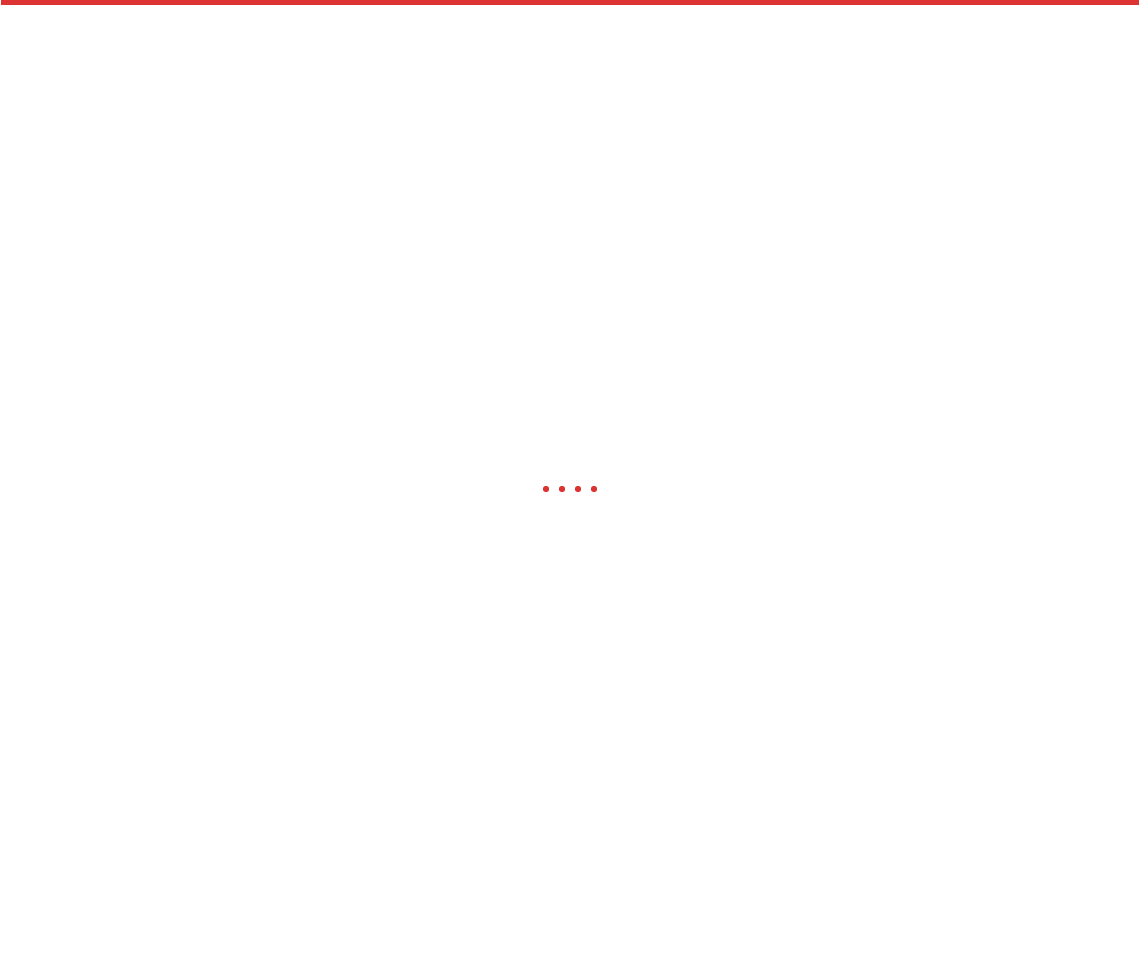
%!PS-Adobe-3.0
%%BoundingBox: 0 0 1139 978
%%LanguageLevel: 3
%%Pages: 1
%%EndComments
%%BeginProlog
/setink { 3 { 255 div 3 1 roll } repeat setrgbcolor } def
/fillbox { setink rectfill } def
/disc { newpath 0 360 arc closepath } def
%%EndProlog
%%BeginSetup
<< /PageSize [1139 978] >> setpagedevice
%%EndSetup
%%Page: 1 1
0 978 translate 1 -1 scale
4 setmiterlimit
0 0 1139 978 255 255 255 fillbox
1 0 1138 5 221 51 51 fillbox
546 489 3 disc fill
562 489 3 disc fill
578 489 3 disc fill
594 489 3 disc fill
showpage
%%EOF
